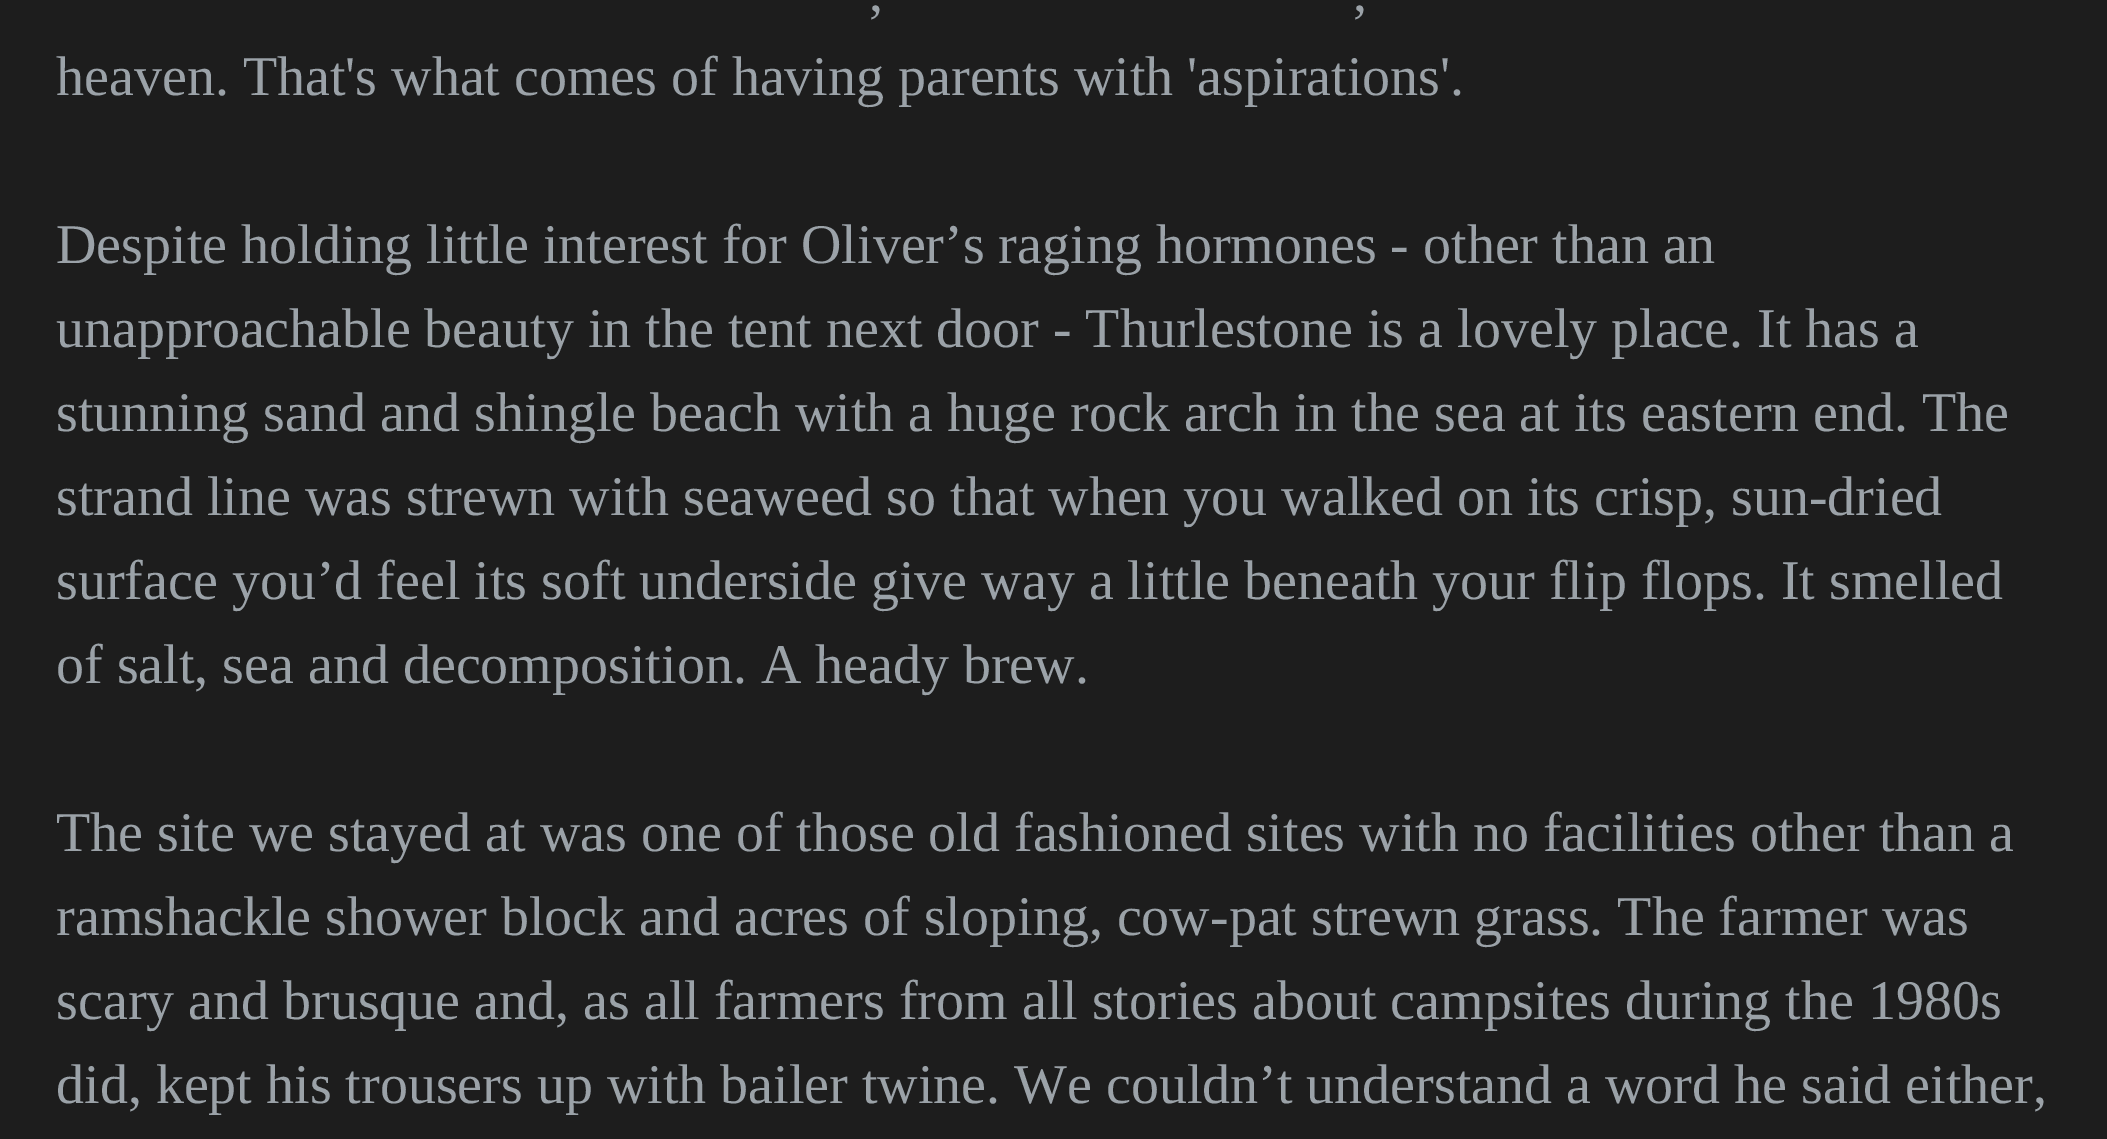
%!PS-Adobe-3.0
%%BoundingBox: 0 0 2107 1139
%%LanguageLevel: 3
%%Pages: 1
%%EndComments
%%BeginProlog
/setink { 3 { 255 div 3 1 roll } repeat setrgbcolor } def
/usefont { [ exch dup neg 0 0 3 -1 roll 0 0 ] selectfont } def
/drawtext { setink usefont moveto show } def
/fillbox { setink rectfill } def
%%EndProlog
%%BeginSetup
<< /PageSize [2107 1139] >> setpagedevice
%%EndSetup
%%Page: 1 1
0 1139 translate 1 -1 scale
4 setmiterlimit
0 0 2107 1139 29 29 29 fillbox
(,) 869 11 /LiberationSerif-Regular 56 155 162 168 drawtext
(,) 1353 11 /LiberationSerif-Regular 56 155 162 168 drawtext
(heaven. That's what comes of having parents with 'aspirations'.) 56 95 /LiberationSerif-Regular 56 155 162 168 drawtext
(Despite holding little interest for Oliver’s raging hormones - other than an) 56 263 /LiberationSerif-Regular 56 155 162 168 drawtext
(unapproachable beauty in the tent next door - Thurlestone is a lovely place. It has a) 56 347 /LiberationSerif-Regular 56 155 162 168 drawtext
(stunning sand and shingle beach with a huge rock arch in the sea at its eastern end. The) 56 431 /LiberationSerif-Regular 56 155 162 168 drawtext
(strand line was strewn with seaweed so that when you walked on its crisp, sun-dried) 56 515 /LiberationSerif-Regular 56 155 162 168 drawtext
(surface you’d feel its soft underside give way a little beneath your flip flops. It smelled) 56 599 /LiberationSerif-Regular 56 155 162 168 drawtext
(of salt, sea and decomposition. A heady brew.) 56 683 /LiberationSerif-Regular 56 155 162 168 drawtext
(The site we stayed at was one of those old fashioned sites with no facilities other than a) 56 851 /LiberationSerif-Regular 56 155 162 168 drawtext
(ramshackle shower block and acres of sloping, cow-pat strewn grass. The farmer was) 56 935 /LiberationSerif-Regular 56 155 162 168 drawtext
(scary and brusque and, as all farmers from all stories about campsites during the 1980s) 56 1019 /LiberationSerif-Regular 56 155 162 168 drawtext
(did, kept his trousers up with bailer twine. We couldn’t understand a word he said either,) 56 1103 /LiberationSerif-Regular 56 155 162 168 drawtext
showpage
%%EOF
